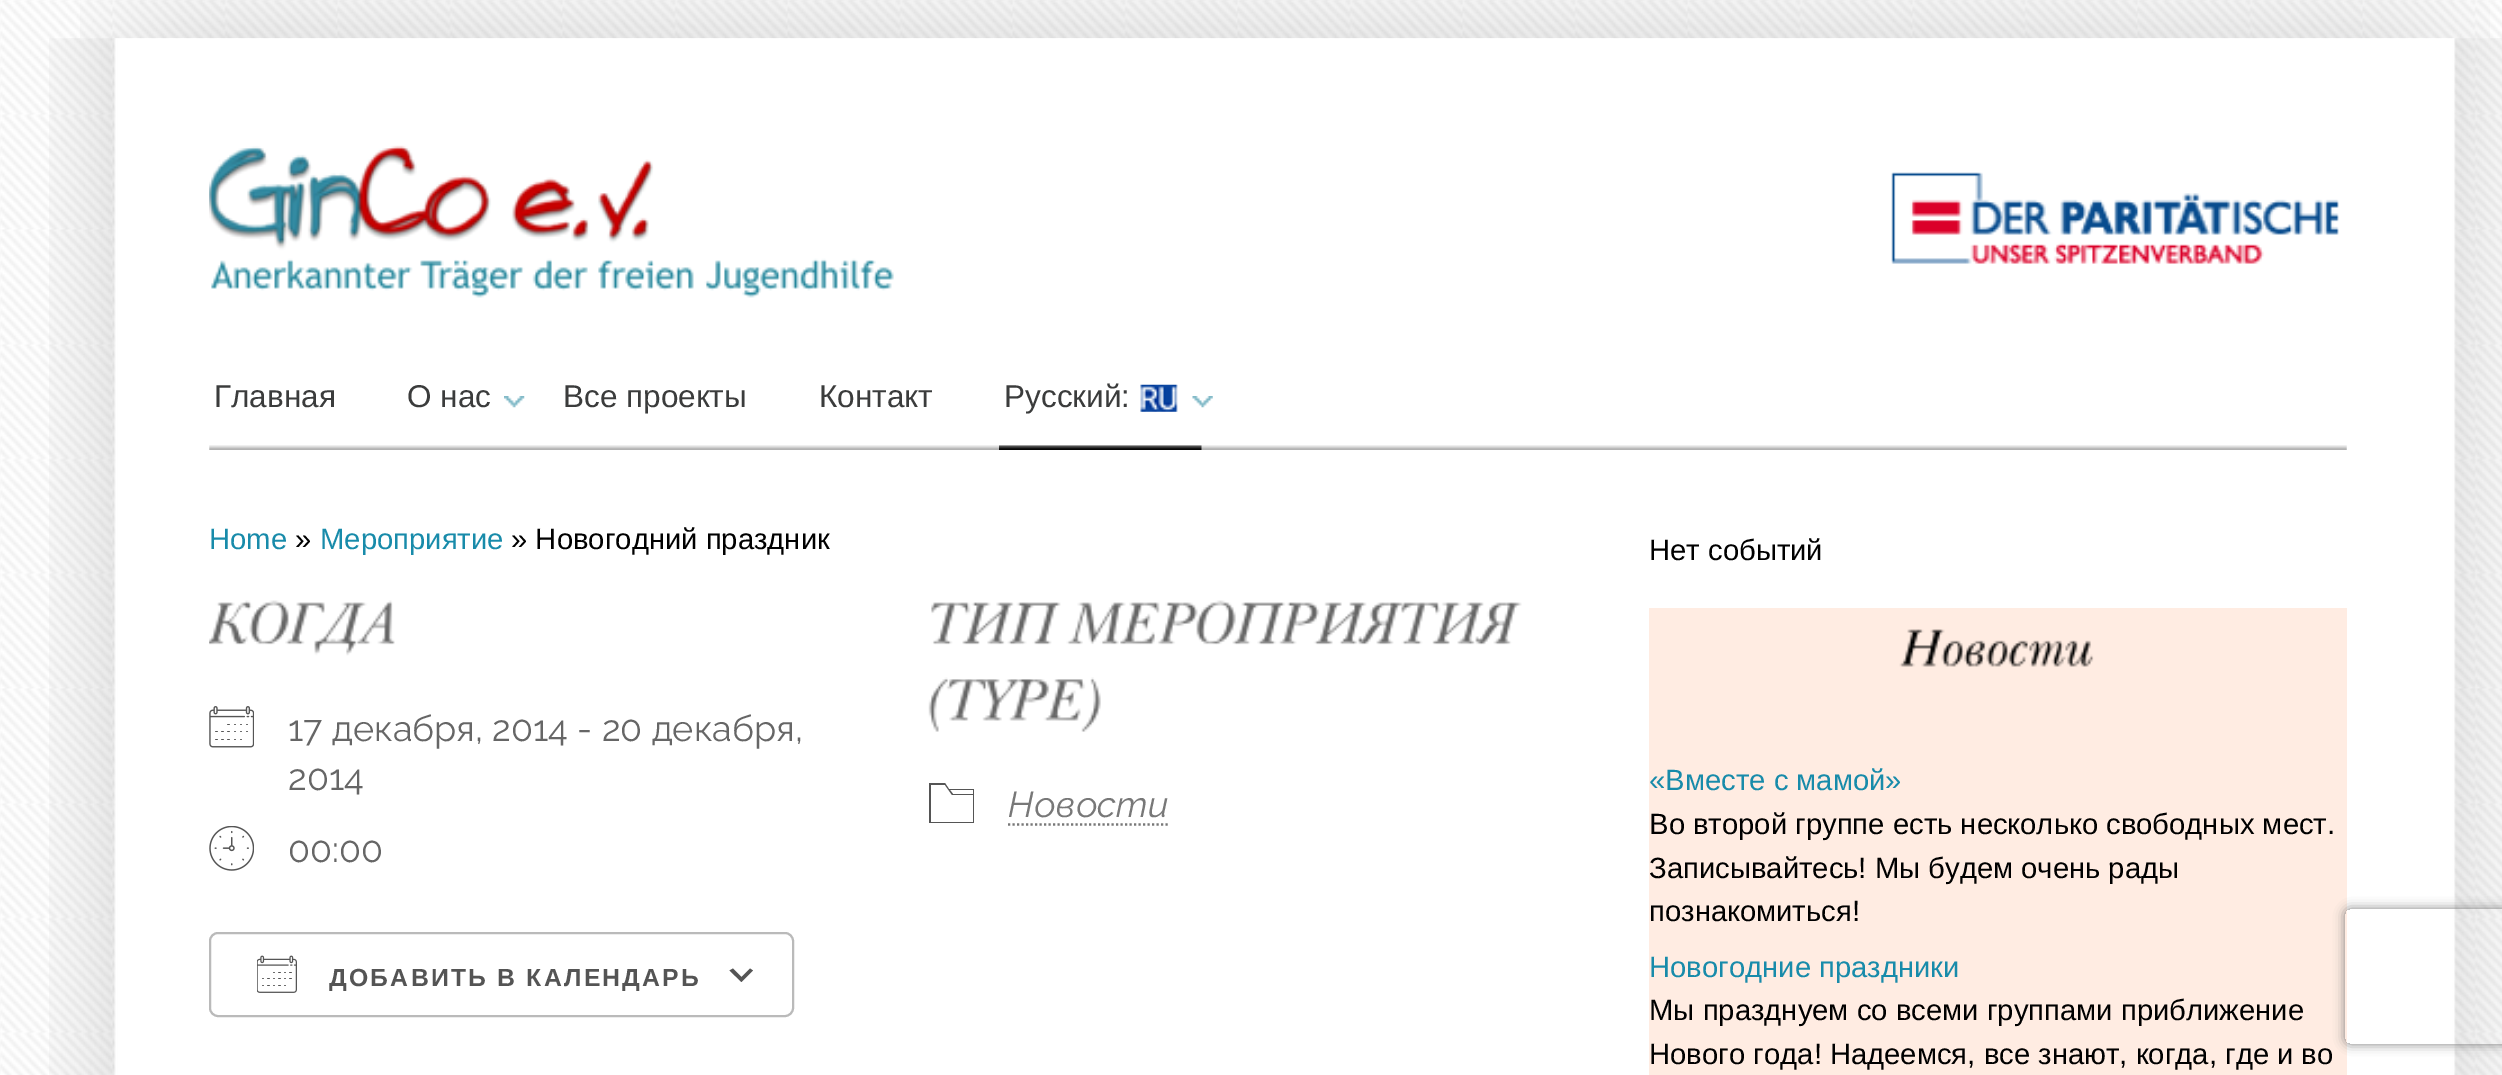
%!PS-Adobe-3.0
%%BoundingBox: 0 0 2502 1075
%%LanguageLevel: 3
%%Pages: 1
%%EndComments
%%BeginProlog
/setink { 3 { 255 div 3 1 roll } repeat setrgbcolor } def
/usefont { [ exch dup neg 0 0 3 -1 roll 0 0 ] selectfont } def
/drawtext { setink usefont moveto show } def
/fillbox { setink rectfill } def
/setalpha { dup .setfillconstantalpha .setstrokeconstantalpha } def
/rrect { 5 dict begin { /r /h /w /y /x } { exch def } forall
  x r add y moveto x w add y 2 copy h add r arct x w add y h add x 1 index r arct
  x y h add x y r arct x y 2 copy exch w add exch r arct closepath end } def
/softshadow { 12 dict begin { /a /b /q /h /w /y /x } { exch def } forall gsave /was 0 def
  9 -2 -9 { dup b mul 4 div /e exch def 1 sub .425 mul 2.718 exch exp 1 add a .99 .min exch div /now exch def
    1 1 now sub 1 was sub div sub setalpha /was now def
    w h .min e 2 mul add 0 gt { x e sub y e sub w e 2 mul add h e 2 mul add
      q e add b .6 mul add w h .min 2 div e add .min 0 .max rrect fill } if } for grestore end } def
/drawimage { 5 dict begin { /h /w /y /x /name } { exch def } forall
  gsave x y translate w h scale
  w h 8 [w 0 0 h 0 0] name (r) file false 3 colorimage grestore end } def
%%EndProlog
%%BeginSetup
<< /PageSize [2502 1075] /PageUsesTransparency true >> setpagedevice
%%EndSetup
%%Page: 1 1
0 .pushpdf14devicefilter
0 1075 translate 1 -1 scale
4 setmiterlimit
0 0 2502 1075 255 255 255 fillbox
(assets/img1.rgb) 0 0 2502 1075 drawimage
(assets/img2.rgb) 80 0 2410 38 drawimage
(assets/img3.rgb) 49 38 2453 1037 drawimage
(assets/img4.rgb) 209 145 2130 153 drawimage
(assets/img5.rgb) 209 445 2138 5 drawimage
(Главная) 214 407 /LiberationSans-Regular 31.5 59 60 60 drawtext
(О нас) 407 407 /LiberationSans-Regular 31.5 59 60 60 drawtext
(assets/img6.rgb) 504 396 21 12 drawimage
(Все проекты) 563 407 /LiberationSans-Regular 31.5 59 60 60 drawtext
(Контакт) 819 407 /LiberationSans-Regular 31.5 59 60 60 drawtext
(assets/img7.rgb) 999 445 203 5 drawimage
(Русский:) 1004 407 /LiberationSans-Regular 31.5 59 60 60 drawtext
(assets/img8.rgb) 1140 384 38 28 drawimage
(assets/img9.rgb) 1192 396 21 12 drawimage
(Home) 209 549 /LiberationSans-Regular 29.25 24 139 170 drawtext
(») 295 549 /LiberationSans-Regular 29.25 0 0 0 drawtext
(Мероприятие) 320 549 /LiberationSans-Regular 29.25 24 139 170 drawtext
(» Новогодний праздник) 511 549 /LiberationSans-Regular 29.25 0 0 0 drawtext
(assets/img10.rgb) 209 600 186 56 drawimage
(assets/img11.rgb) 209 706 45 42 drawimage
(17 декабря, 2014 - 20 декабря,) 288 741 /Raleway-Regular 36 102 102 102 drawtext
(2014) 288 790 /Raleway-Regular 36 102 102 102 drawtext
(assets/img12.rgb) 209 826 45 45 drawimage
(00:00) 288 862 /Raleway-Regular 36 102 102 102 drawtext
85 85 85 setink
733 968.5 moveto 741.5 977 lineto 750 968.5 lineto 753 970.5 lineto 741.5 982 lineto 729.5 970.5 lineto closepath fill
186 186 186 setink
2 setlinewidth
210 933 583 83 8 rrect stroke
(assets/img13.rgb) 257 955 40 38 drawimage
/LiberationSans-Bold 24.75 usefont
84 84 84 setink
329 986 moveto 2.25 0 (ДОБАВИТЬ В КАЛЕНДАРЬ) ashow
(assets/img14.rgb) 931 602 130 43 drawimage
(assets/img15.rgb) 1066 600 456 45 drawimage
(assets/img16.rgb) 928 677 173 55 drawimage
85 85 85 setink
949 789 moveto 945 783 lineto 929 783 lineto 929 823 lineto 974 823 lineto 974 789 lineto closepath 973 790 moveto 973 794 lineto 953 794 lineto 950 790 lineto closepath 931 822 moveto 931 785 lineto 945 785 lineto 952 795 lineto 973 795 lineto 973 822 lineto closepath fill
(Новости) 1008 817 /Raleway-Italic 36 120 120 120 drawtext
2.2 setlinewidth
[2.25 2.25] 0 setdash
1008 824.5 moveto 1168.5 824.5 lineto stroke
(Нет событий) 1649 560 /LiberationSans-Regular 29.25 0 0 0 drawtext
1649 608 698 467 255 236 226 fillbox
(assets/img17.rgb) 1899 629 195 38 drawimage
(«Вместе с мамой») 1649 790 /LiberationSans-Regular 29.25 24 139 170 drawtext
(Во второй группе есть несколько свободных мест.) 1649 834 /LiberationSans-Regular 29.25 0 0 0 drawtext
(Записывайтесь! Мы будем очень рады) 1649 878 /LiberationSans-Regular 29.25 0 0 0 drawtext
(познакомиться!) 1649 921 /LiberationSans-Regular 29.25 0 0 0 drawtext
(Новогодние праздники) 1649 977 /LiberationSans-Regular 29.25 24 139 170 drawtext
(Мы празднуем со всеми группами приближение) 1649 1020 /LiberationSans-Regular 29.25 0 0 0 drawtext
(Нового года! Надеемся, все знают, когда, где и во) 1649 1064 /LiberationSans-Regular 29.25 0 0 0 drawtext
gsave
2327 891 moveto 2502 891 lineto 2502 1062 lineto 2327 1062 lineto closepath 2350 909 moveto 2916 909 lineto 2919 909 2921 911 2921 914 curveto 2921 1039 lineto 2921 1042 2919 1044 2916 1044 curveto 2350 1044 lineto 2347 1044 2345 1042 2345 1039 curveto 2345 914 lineto 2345 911 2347 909 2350 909 curveto closepath eoclip newpath
128 128 128 setink
2345 909 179 135 5 5.5 1 softshadow
grestore
.poppdf14devicefilter showpage
%%EOF
